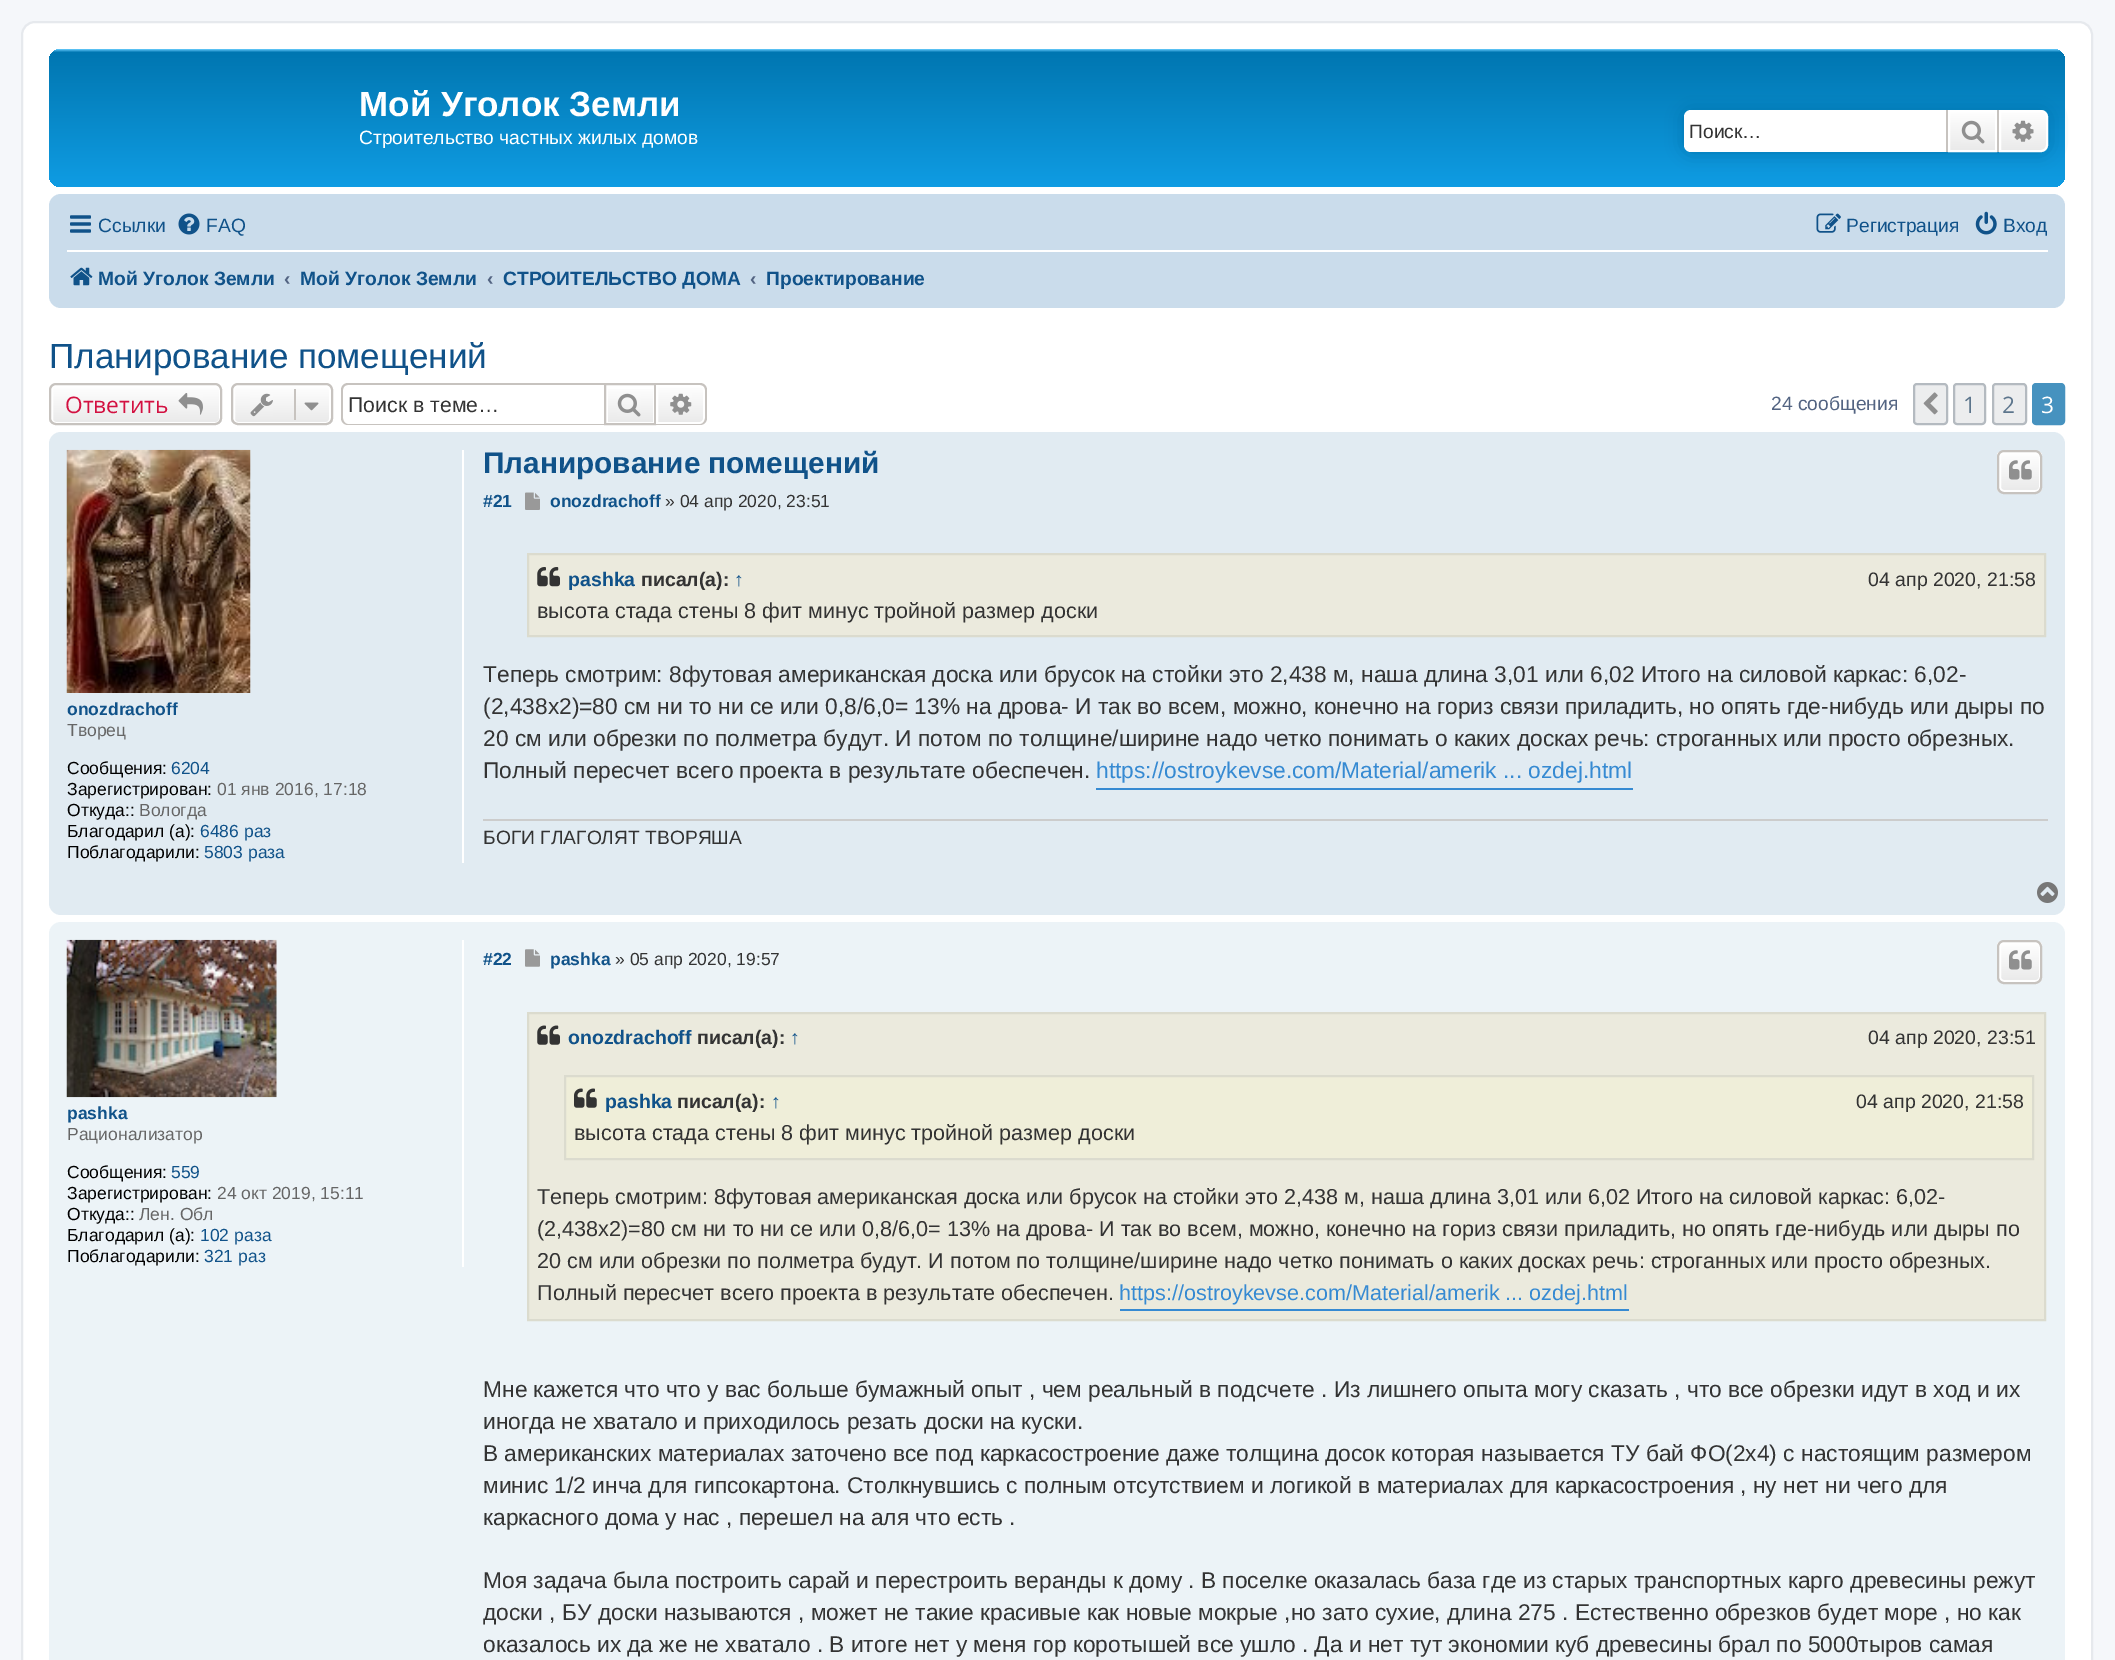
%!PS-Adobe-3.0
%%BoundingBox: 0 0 2115 1660
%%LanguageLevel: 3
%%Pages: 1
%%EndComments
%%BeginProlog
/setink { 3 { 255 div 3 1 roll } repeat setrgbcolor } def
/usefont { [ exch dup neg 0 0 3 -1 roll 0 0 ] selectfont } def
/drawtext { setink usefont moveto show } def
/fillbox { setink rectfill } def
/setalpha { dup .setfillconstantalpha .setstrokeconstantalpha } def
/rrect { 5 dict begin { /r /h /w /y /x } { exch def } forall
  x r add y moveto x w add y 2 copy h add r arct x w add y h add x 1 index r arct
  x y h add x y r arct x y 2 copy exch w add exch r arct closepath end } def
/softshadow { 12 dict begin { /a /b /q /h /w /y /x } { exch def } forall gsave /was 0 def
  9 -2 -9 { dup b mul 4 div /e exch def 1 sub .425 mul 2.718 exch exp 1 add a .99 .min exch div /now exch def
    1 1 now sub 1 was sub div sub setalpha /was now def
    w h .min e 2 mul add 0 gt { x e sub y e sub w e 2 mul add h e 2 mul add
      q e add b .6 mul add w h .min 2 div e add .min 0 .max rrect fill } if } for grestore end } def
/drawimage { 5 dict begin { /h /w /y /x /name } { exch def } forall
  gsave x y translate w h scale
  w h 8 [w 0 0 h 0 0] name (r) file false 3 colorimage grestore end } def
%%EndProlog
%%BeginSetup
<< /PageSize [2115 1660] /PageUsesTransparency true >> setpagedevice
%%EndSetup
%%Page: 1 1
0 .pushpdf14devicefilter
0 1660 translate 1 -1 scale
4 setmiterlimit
0 0 2115 1660 245 247 250 fillbox
255 255 255 setink
22 22 2070 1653 13 rrect gsave fill grestore
230 233 237 setink
2 setlinewidth
stroke
gsave 49 49 2016 138 12 rrect clip newpath
<< /ShadingType 2 /ColorSpace /DeviceRGB /Coords [1057 49 1057 210] /Extend [true true] /Function << /FunctionType 3 /Domain [0 1] /Functions [<< /FunctionType 2 /Domain [0 1] /C0 [0.416 0.808 1] /C1 [0 0.463 0.694] /N 1 >> << /FunctionType 2 /Domain [0 1] /C0 [0 0.463 0.694] /C1 [0.071 0.639 0.922] /N 1 >>] /Bounds [0.02] /Encode [0 1 0 1] >> >> shfill grestore
(Мой Уголок Земли) 359 116 /LiberationSans-Bold 35 255 255 255 drawtext
(Cтроительство частных жилых домов) 359 144 /LiberationSans-Regular 19.25 255 255 255 drawtext
0 117 176 setink
1684 110 364 42 7 9 1 softshadow
255 255 255 setink
1691 110 moveto 1946 110 lineto 1946 152 lineto 1691 152 lineto 1687 152 1684 149 1684 145 curveto 1684 117 lineto 1684 113 1687 110 1691 110 curveto closepath fill
(Поиск…) 1689 138 /LiberationSans-Regular 19.25 51 51 51 drawtext
gsave 1950 112 moveto 1995 112 lineto 1995 150 lineto 1950 150 lineto closepath clip newpath
<< /ShadingType 2 /ColorSpace /DeviceRGB /Coords [1972 110 1972 152] /Extend [true true] /Function << /FunctionType 2 /Domain [0 1] /C0 [1 1 1] /C1 [0.914 0.914 0.914] /N 1 >> >> shfill grestore
255 255 255 setink
1949 111 47 40 rectstroke
1997 110 2 42 199 195 191 fillbox
1946 110 2 42 199 195 191 fillbox
(assets/img1.rgb) 1961 120 24 24 drawimage
gsave 2000 111 moveto 2041 111 lineto 2044.5 111 2047 113.5 2047 117 curveto 2047 145 lineto 2047 148.5 2044.5 151 2041 151 curveto 2000 151 lineto closepath clip newpath
<< /ShadingType 2 /ColorSpace /DeviceRGB /Coords [2023 110 2023 152] /Extend [true true] /Function << /FunctionType 2 /Domain [0 1] /C0 [1 1 1] /C1 [0.914 0.914 0.914] /N 1 >> >> shfill grestore
255 255 255 setink
2000 111 moveto 2041 111 lineto 2044.5 111 2047 113.5 2047 117 curveto 2047 145 lineto 2047 148.5 2044.5 151 2041 151 curveto 2000 151 lineto closepath stroke
(assets/img2.rgb) 2012 120 22 22 drawimage
202 220 235 setink
49 194 2016 114 12 rrect fill
(assets/img3.rgb) 70 215 21 18 drawimage
(Ссылки) 98 232 /LiberationSans-Regular 19.25 16 82 137 drawtext
(assets/img4.rgb) 178 213 22 22 drawimage
(FAQ) 206 232 /LiberationSans-Regular 19.25 16 82 137 drawtext
(assets/img5.rgb) 1816 213 25 20 drawimage
(Регистрация) 1846 232 /LiberationSans-Regular 19.25 16 82 137 drawtext
(assets/img6.rgb) 1975 211 22 24 drawimage
(Вход) 2003 232 /LiberationSans-Regular 19.25 16 82 137 drawtext
67 250 1981 2 255 255 255 fillbox
(assets/img7.rgb) 70 267 23 19 drawimage
(Мой Уголок Земли) 98 285 /LiberationSans-Bold 19.25 16 82 137 drawtext
(‹) 284 285 /LiberationSans-Bold 19.25 83 100 130 drawtext
(Мой Уголок Земли) 300 285 /LiberationSans-Bold 19.25 16 82 137 drawtext
(‹) 487 285 /LiberationSans-Bold 19.25 83 100 130 drawtext
(СТРОИТЕЛЬСТВО ДОМА) 503 285 /LiberationSans-Bold 19.25 16 82 137 drawtext
(‹) 750 285 /LiberationSans-Bold 19.25 83 100 130 drawtext
(Проектирование) 766 285 /LiberationSans-Bold 19.25 16 82 137 drawtext
(Планирование помещений) 49 368 /LiberationSans-Regular 35 16 82 137 drawtext
gsave
49 383 173 42 7 rrect clip newpath
gsave 49 385 moveto 222 385 lineto 222 424 lineto 49 424 lineto closepath clip newpath
<< /ShadingType 2 /ColorSpace /DeviceRGB /Coords [136 385 136 424] /Extend [true true] /Function << /FunctionType 2 /Domain [0 1] /C0 [1 1 1] /C1 [0.914 0.914 0.914] /N 1 >> >> shfill grestore
grestore
255 255 255 setink
52 386 168 37 4 rrect stroke
199 195 191 setink
50 384 171 40 6 rrect stroke
(Ответить) 65 413 /OpenSans-Regular 22.75 211 17 65 drawtext
(assets/img8.rgb) 178 393 25 22 drawimage
gsave
231 383 102 42 7 rrect clip newpath
gsave 231 385 moveto 333 385 lineto 333 424 lineto 231 424 lineto closepath clip newpath
<< /ShadingType 2 /ColorSpace /DeviceRGB /Coords [282 385 282 424] /Extend [true true] /Function << /FunctionType 2 /Domain [0 1] /C0 [1 1 1] /C1 [0.914 0.914 0.914] /N 1 >> >> shfill grestore
grestore
255 255 255 setink
234 386 96 37 4 rrect stroke
199 195 191 setink
232 384 100 40 6 rrect stroke
(assets/img9.rgb) 250 393 23 24 drawimage
294 389 2 31 199 195 191 fillbox
(assets/img10.rgb) 304 402 15 9 drawimage
348 383 moveto 604 383 lineto 604 425 lineto 348 425 lineto 344 425 341 422 341 418 curveto 341 390 lineto 341 386 344 383 348 383 curveto closepath 348 385 moveto 604 385 lineto 604 424 lineto 348 424 lineto 345 424 343 421 343 418 curveto 343 390 lineto 343 387 345 385 348 385 curveto closepath eofill
(Поиск в теме…) 348 412 /LiberationSans-Regular 21.25 51 51 51 drawtext
gsave 608 389 moveto 653 389 lineto 653 422 lineto 608 422 lineto closepath clip newpath
<< /ShadingType 2 /ColorSpace /DeviceRGB /Coords [630 385 630 424] /Extend [true true] /Function << /FunctionType 2 /Domain [0 1] /C0 [1 1 1] /C1 [0.914 0.914 0.914] /N 1 >> >> shfill grestore
199 195 191 setink
605 384 50 40 rectstroke
(assets/img11.rgb) 617 393 24 24 drawimage
gsave 657 386 moveto 700 386 lineto 702 386 704 388 704 390 curveto 704 419 lineto 704 421 702 423 700 423 curveto 657 423 lineto closepath clip newpath
<< /ShadingType 2 /ColorSpace /DeviceRGB /Coords [681 385 681 424] /Extend [true true] /Function << /FunctionType 2 /Domain [0 1] /C0 [1 1 1] /C1 [0.914 0.914 0.914] /N 1 >> >> shfill grestore
255 255 255 setink
657 386 moveto 700 386 lineto 702 386 704 388 704 390 curveto 704 419 lineto 704 421 702 423 700 423 curveto 657 423 lineto closepath stroke
199 195 191 setink
656 383 moveto 700 383 lineto 704 383 707 386 707 390 curveto 707 418 lineto 707 422 704 425 700 425 curveto 656 425 lineto closepath 656 385 moveto 700 385 lineto 703 385 705 387 705 390 curveto 705 418 lineto 705 421 703 424 700 424 curveto 656 424 lineto closepath eofill
(assets/img12.rgb) 670 393 22 22 drawimage
(24 сообщения) 1771 410 /LiberationSans-Regular 19.25 83 100 130 drawtext
236 237 238 setink
1914 384 33 40 3 rrect gsave fill grestore
180 186 192 setink
stroke
(assets/img13.rgb) 1923 392 15 23 drawimage
236 237 238 setink
1954 384 31 40 3 rrect gsave fill grestore
180 186 192 setink
stroke
(1) 1963 413 /OpenSans-Regular 22.75 92 117 140 drawtext
236 237 238 setink
1993 384 33 40 3 rrect gsave fill grestore
180 186 192 setink
stroke
(2) 2002 413 /OpenSans-Regular 22.75 92 117 140 drawtext
70 146 191 setink
2033 384 31 40 3 rrect gsave fill grestore
stroke
(3) 2041 413 /OpenSans-Regular 22.75 255 255 255 drawtext
225 235 242 setink
49 432 2016 483 12 rrect fill
462 450 2 413 255 255 255 fillbox
(assets/img14.rgb) 66 449 185 244 drawimage
(onozdrachoff) 67 715 /LiberationSans-Bold 17.5 16 82 137 drawtext
(Творец) 67 736 /LiberationSans-Regular 17.5 102 102 102 drawtext
(Сообщения:) 67 774 /LiberationSans-Regular 17.5 0 0 0 drawtext
(6204) 171 774 /LiberationSans-Regular 17.5 16 82 137 drawtext
(Зарегистрирован:) 67 795 /LiberationSans-Regular 17.5 0 0 0 drawtext
(01 янв 2016, 17:18) 217 795 /LiberationSans-Regular 17.5 102 102 102 drawtext
(Откуда::) 67 816 /LiberationSans-Regular 17.5 0 0 0 drawtext
(Вологда) 139 816 /LiberationSans-Regular 17.5 102 102 102 drawtext
(Благодарил \(а\):) 67 837 /LiberationSans-Regular 17.5 0 0 0 drawtext
(6486 раз) 200 837 /LiberationSans-Regular 17.5 16 82 137 drawtext
(Поблагодарили:) 67 858 /LiberationSans-Regular 17.5 0 0 0 drawtext
(5803 раза) 204 858 /LiberationSans-Regular 17.5 16 82 137 drawtext
(Планирование помещений) 483 473 /LiberationSans-Bold 29.75 16 82 137 drawtext
gsave
1997 450 45 44 7 rrect clip newpath
gsave 1997 452 moveto 2042 452 lineto 2042 492 lineto 1997 492 lineto closepath clip newpath
<< /ShadingType 2 /ColorSpace /DeviceRGB /Coords [2020 452 2020 492] /Extend [true true] /Function << /FunctionType 2 /Domain [0 1] /C0 [1 1 1] /C1 [0.914 0.914 0.914] /N 1 >> >> shfill grestore
grestore
255 255 255 setink
2000 453 40 38 4 rrect stroke
199 195 191 setink
1998 451 43 42 6 rrect stroke
(assets/img15.rgb) 2009 460 23 20 drawimage
(#21) 483 507 /LiberationSans-Bold 17.5 16 82 137 drawtext
(assets/img16.rgb) 525 492 15 18 drawimage
(onozdrachoff) 550 507 /LiberationSans-Bold 17.5 16 82 137 drawtext
(» 04 апр 2020, 23:51) 665 507 /LiberationSans-Regular 17.5 51 51 51 drawtext
235 234 221 setink
528 554 moveto 2045 554 lineto 2045 636 lineto 528 636 lineto closepath gsave fill grestore
219 219 206 setink
stroke
(assets/img17.rgb) 537 567 23 20 drawimage
(pashka) 568 586 /LiberationSans-Bold 19.5 16 82 137 drawtext
(писал\(а\):) 641 586 /LiberationSans-Bold 19.5 51 51 51 drawtext
(↑) 734 586 /LiberationSans-Bold 19.5 16 82 137 drawtext
(04 апр 2020, 21:58) 1868 586 /LiberationSans-Regular 19.5 51 51 51 drawtext
(высота стада стены 8 фит минус тройной размер доски) 537 618 /LiberationSans-Regular 21.6 51 51 51 drawtext
(Теперь смотрим: 8футовая американская доска или брусок на стойки это 2,438 м, наша длина 3,01 или 6,02 Итого на силовой каркас: 6,02-) 483 682 /LiberationSans-Regular 22.75 51 51 51 drawtext
(\(2,438х2\)=80 см ни то ни се или 0,8/6,0= 13% на дрова- И так во всем, можно, конечно на гориз связи приладить, но опять где-нибудь или дыры по) 483 714 /LiberationSans-Regular 22.75 51 51 51 drawtext
(20 см или обрезки по полметра будут. И потом по толщине/ширине надо четко понимать о каких досках речь: строганных или просто обрезных.) 483 746 /LiberationSans-Regular 22.75 51 51 51 drawtext
(Полный пересчет всего проекта в результате обеспечен.) 483 778 /LiberationSans-Regular 22.75 51 51 51 drawtext
1096 788 537 2 54 138 210 fillbox
(https://ostroykevse.com/Material/amerik ... ozdej.html) 1096 778 /LiberationSans-Regular 22.75 54 138 210 drawtext
483 819 1565 2 204 204 204 fillbox
(БОГИ ГЛАГОЛЯТ ТВОРЯША) 483 844 /LiberationSans-Regular 19.25 51 51 51 drawtext
(assets/img18.rgb) 2037 882 21 21 drawimage
236 243 247 setink
49 922 2016 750 12 rrect fill
462 940 2 327 255 255 255 fillbox
(assets/img19.rgb) 66 939 211 159 drawimage
(pashka) 67 1119 /LiberationSans-Bold 17.5 16 82 137 drawtext
(Рационализатор) 67 1140 /LiberationSans-Regular 17.5 102 102 102 drawtext
(Сообщения:) 67 1178 /LiberationSans-Regular 17.5 0 0 0 drawtext
(559) 171 1178 /LiberationSans-Regular 17.5 16 82 137 drawtext
(Зарегистрирован:) 67 1199 /LiberationSans-Regular 17.5 0 0 0 drawtext
(24 окт 2019, 15:11) 217 1199 /LiberationSans-Regular 17.5 102 102 102 drawtext
(Откуда::) 67 1220 /LiberationSans-Regular 17.5 0 0 0 drawtext
(Лен. Обл) 139 1220 /LiberationSans-Regular 17.5 102 102 102 drawtext
(Благодарил \(а\):) 67 1241 /LiberationSans-Regular 17.5 0 0 0 drawtext
(102 раза) 200 1241 /LiberationSans-Regular 17.5 16 82 137 drawtext
(Поблагодарили:) 67 1262 /LiberationSans-Regular 17.5 0 0 0 drawtext
(321 раз) 204 1262 /LiberationSans-Regular 17.5 16 82 137 drawtext
(#22) 483 965 /LiberationSans-Bold 17.5 16 82 137 drawtext
(assets/img20.rgb) 525 949 15 18 drawimage
(pashka) 550 965 /LiberationSans-Bold 17.5 16 82 137 drawtext
(» 05 апр 2020, 19:57) 615 965 /LiberationSans-Regular 17.5 51 51 51 drawtext
gsave
1997 940 45 44 7 rrect clip newpath
gsave 1997 942 moveto 2042 942 lineto 2042 982 lineto 1997 982 lineto closepath clip newpath
<< /ShadingType 2 /ColorSpace /DeviceRGB /Coords [2020 942 2020 982] /Extend [true true] /Function << /FunctionType 2 /Domain [0 1] /C0 [1 1 1] /C1 [0.914 0.914 0.914] /N 1 >> >> shfill grestore
grestore
255 255 255 setink
2000 943 40 38 4 rrect stroke
199 195 191 setink
1998 941 43 42 6 rrect stroke
(assets/img15.rgb) 2009 950 23 20 drawimage
235 234 221 setink
528 1013 moveto 2045 1013 lineto 2045 1320 lineto 528 1320 lineto closepath gsave fill grestore
219 219 206 setink
stroke
(assets/img21.rgb) 537 1025 23 20 drawimage
(onozdrachoff) 568 1044 /LiberationSans-Bold 19.5 16 82 137 drawtext
(писал\(а\):) 697 1044 /LiberationSans-Bold 19.5 51 51 51 drawtext
(↑) 790 1044 /LiberationSans-Bold 19.5 16 82 137 drawtext
(04 апр 2020, 23:51) 1868 1044 /LiberationSans-Regular 19.5 51 51 51 drawtext
239 238 217 setink
565 1076 moveto 2033 1076 lineto 2033 1159 lineto 565 1159 lineto closepath gsave fill grestore
219 219 206 setink
stroke
(assets/img22.rgb) 574 1088 23 20 drawimage
(pashka) 605 1108 /LiberationSans-Bold 19.5 16 82 137 drawtext
(писал\(а\):) 677 1108 /LiberationSans-Bold 19.5 51 51 51 drawtext
(↑) 771 1108 /LiberationSans-Bold 19.5 16 82 137 drawtext
(04 апр 2020, 21:58) 1856 1108 /LiberationSans-Regular 19.5 51 51 51 drawtext
(высота стада стены 8 фит минус тройной размер доски) 574 1140 /LiberationSans-Regular 21.6 51 51 51 drawtext
(Теперь смотрим: 8футовая американская доска или брусок на стойки это 2,438 м, наша длина 3,01 или 6,02 Итого на силовой каркас: 6,02-) 537 1204 /LiberationSans-Regular 21.6 51 51 51 drawtext
(\(2,438х2\)=80 см ни то ни се или 0,8/6,0= 13% на дрова- И так во всем, можно, конечно на гориз связи приладить, но опять где-нибудь или дыры по) 537 1236 /LiberationSans-Regular 21.6 51 51 51 drawtext
(20 см или обрезки по полметра будут. И потом по толщине/ширине надо четко понимать о каких досках речь: строганных или просто обрезных.) 537 1268 /LiberationSans-Regular 21.6 51 51 51 drawtext
(Полный пересчет всего проекта в результате обеспечен.) 537 1300 /LiberationSans-Regular 21.6 51 51 51 drawtext
1120 1309 509 2 54 138 210 fillbox
(https://ostroykevse.com/Material/amerik ... ozdej.html) 1119 1300 /LiberationSans-Regular 21.6 54 138 210 drawtext
(Мне кажется что что у вас больше бумажный опыт , чем реальный в подсчете . Из лишнего опыта могу сказать , что все обрезки идут в ход и их) 483 1397 /LiberationSans-Regular 22.75 51 51 51 drawtext
(иногда не хватало и приходилось резать доски на куски.) 483 1429 /LiberationSans-Regular 22.75 51 51 51 drawtext
(В американских материалах заточено все под каркасостроение даже толщина досок которая называется ТУ бай ФО\(2х4\) с настоящим размером) 483 1461 /LiberationSans-Regular 22.75 51 51 51 drawtext
(минис 1/2 инча для гипсокартона. Столкнувшись с полным отсутствием и логикой в материалах для каркасостроения , ну нет ни чего для) 483 1493 /LiberationSans-Regular 22.75 51 51 51 drawtext
(каркасного дома у нас , перешел на аля что есть .) 483 1525 /LiberationSans-Regular 22.75 51 51 51 drawtext
(Моя задача была построить сарай и перестроить веранды к дому . В поселке оказалась база где из старых транспортных карго древесины режут) 483 1588 /LiberationSans-Regular 22.75 51 51 51 drawtext
gsave
483 989 1565 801 rectclip
(доски , БУ доски называются , может не такие красивые как новые мокрые ,но зато сухие, длина 275 . Естественно обрезков будет море , но как) 483 1620 /LiberationSans-Regular 22.75 51 51 51 drawtext
grestore
(оказалось их да же не хватало . В итоге нет у меня гор коротышей все ушло . Да и нет тут экономии куб древесины брал по 5000тыров самая) 483 1652 /LiberationSans-Regular 22.75 51 51 51 drawtext
.poppdf14devicefilter showpage
%%EOF
